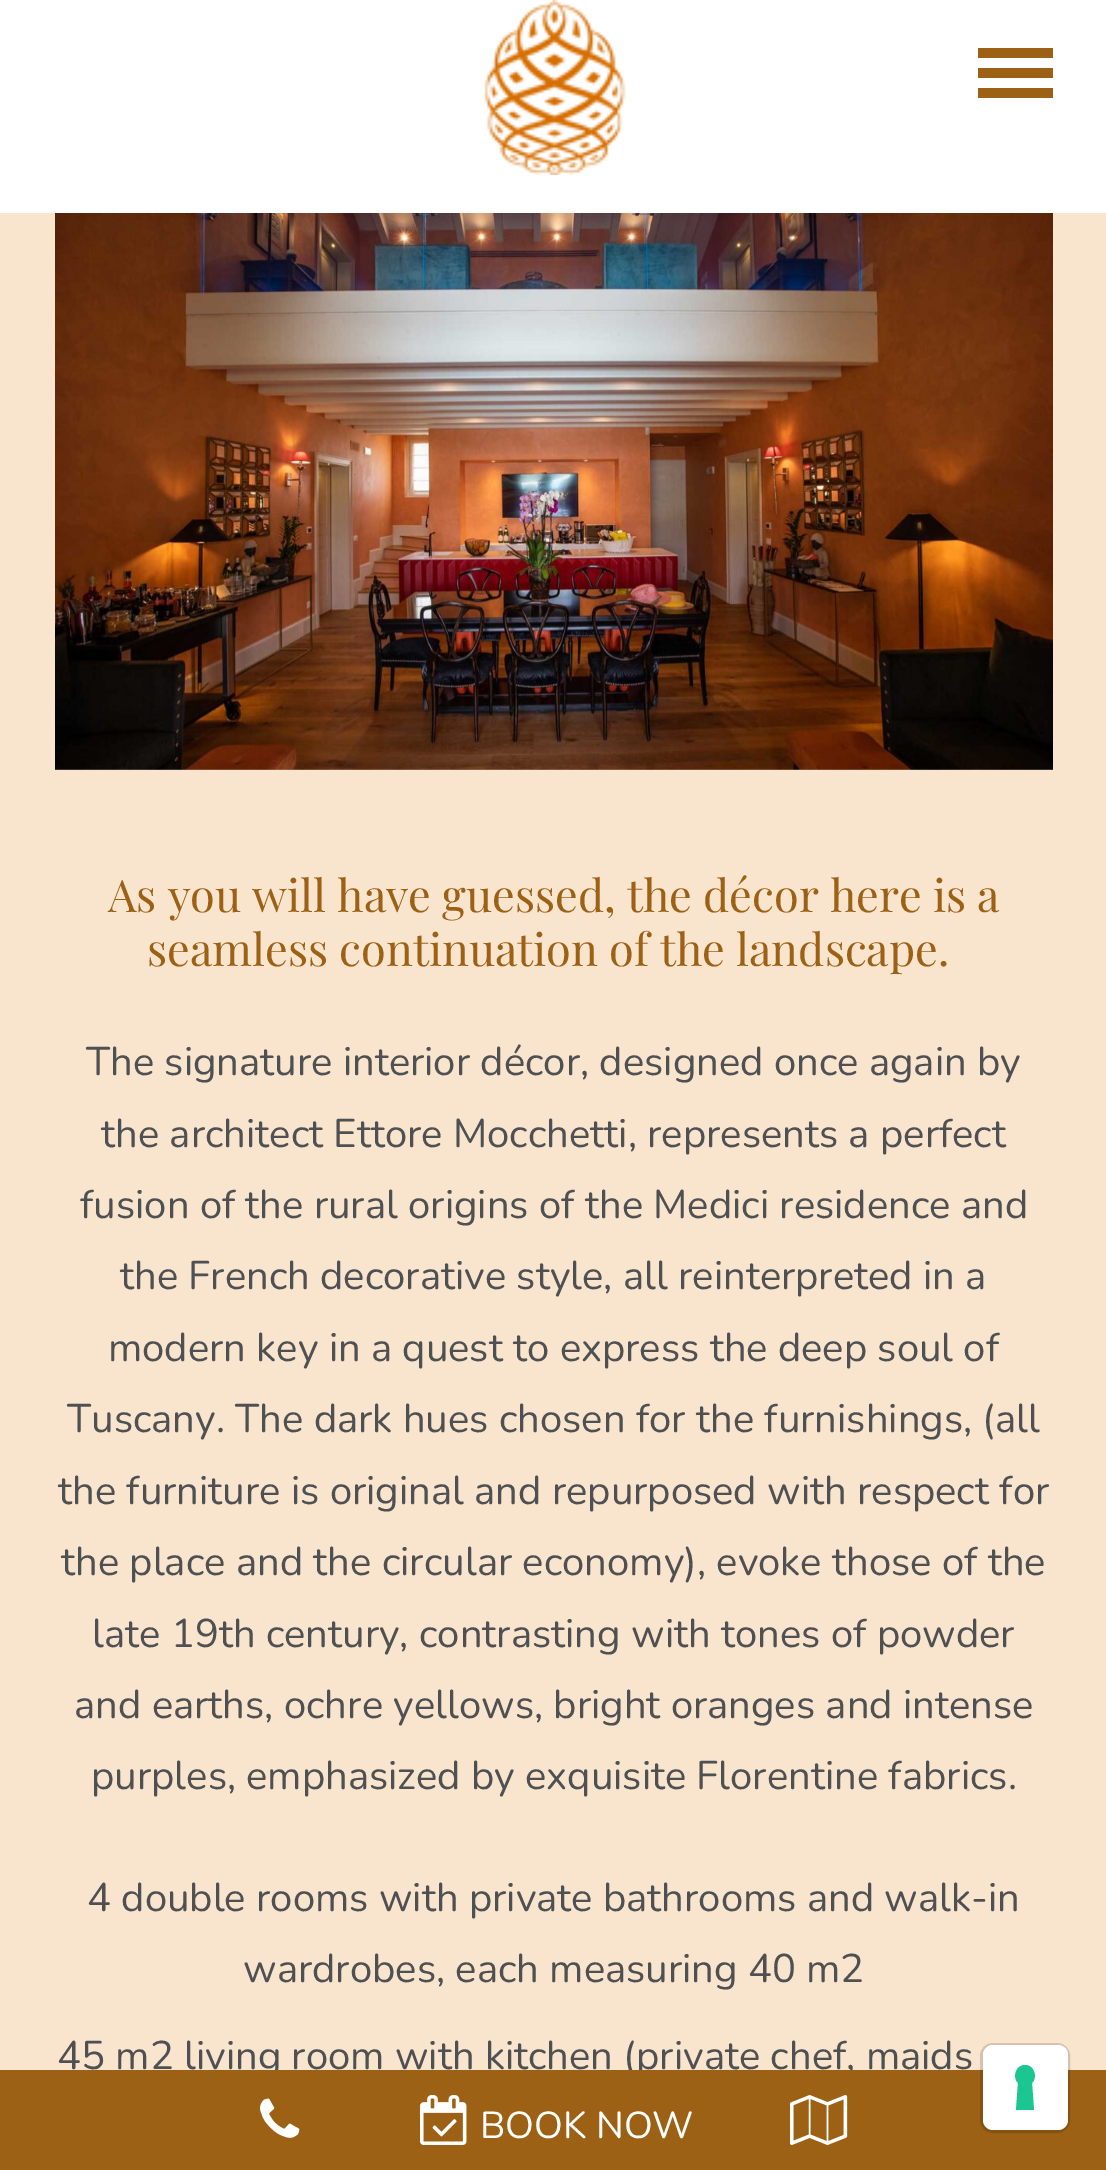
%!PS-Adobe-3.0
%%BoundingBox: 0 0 1106 2170
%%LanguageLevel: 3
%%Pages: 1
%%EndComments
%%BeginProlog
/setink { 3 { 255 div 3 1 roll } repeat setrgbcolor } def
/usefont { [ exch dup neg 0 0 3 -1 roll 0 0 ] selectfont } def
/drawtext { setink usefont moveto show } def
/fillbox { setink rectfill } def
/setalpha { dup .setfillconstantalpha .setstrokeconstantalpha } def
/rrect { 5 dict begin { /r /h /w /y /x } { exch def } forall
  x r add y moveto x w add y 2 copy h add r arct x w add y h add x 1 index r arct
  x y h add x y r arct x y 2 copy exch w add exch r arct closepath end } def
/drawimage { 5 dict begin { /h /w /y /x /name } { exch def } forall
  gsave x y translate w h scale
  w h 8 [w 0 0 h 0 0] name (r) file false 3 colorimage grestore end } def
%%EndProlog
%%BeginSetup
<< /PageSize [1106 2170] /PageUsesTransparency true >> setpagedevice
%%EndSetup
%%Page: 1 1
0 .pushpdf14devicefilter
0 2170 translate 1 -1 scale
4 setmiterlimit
0 0 1106 2170 249 228 206 fillbox
0 0 1106 213 255 255 255 fillbox
(assets/img1.rgb) 484 0 142 175 drawimage
978 68 75 10 156 97 20 fillbox
978 48 75 10 156 97 20 fillbox
978 88 75 10 156 97 20 fillbox
(assets/img2.rgb) 55 213 998 557 drawimage
(As you will have guessed, the décor here is a) 108 912 /PlayfairDisplay-Regular 45 156 97 20 drawtext
(seamless continuation of the landscape.) 147 966 /PlayfairDisplay-Regular 45 156 97 20 drawtext
(The signature interior décor, designed once again by) 86 1075 /Nunito-Regular 40 78 80 81 drawtext
(the architect Ettore Mocchetti, represents a perfect) 101 1147 /Nunito-Regular 40 78 80 81 drawtext
(fusion of the rural origins of the Medici residence and) 80 1218 /Nunito-Regular 40 78 80 81 drawtext
(the French decorative style, all reinterpreted in a) 120 1289 /Nunito-Regular 40 78 80 81 drawtext
(modern key in a quest to express the deep soul of) 108 1361 /Nunito-Regular 40 78 80 81 drawtext
(Tuscany. The dark hues chosen for the furnishings, \(all) 67 1432 /Nunito-Regular 40 78 80 81 drawtext
(the furniture is original and repurposed with respect for) 58 1504 /Nunito-Regular 40 78 80 81 drawtext
(the place and the circular economy\), evoke those of the) 61 1575 /Nunito-Regular 40 78 80 81 drawtext
(late 19th century, contrasting with tones of powder) 92 1647 /Nunito-Regular 40 78 80 81 drawtext
(and earths, ochre yellows, bright oranges and intense) 74 1718 /Nunito-Regular 40 78 80 81 drawtext
(purples, emphasized by exquisite Florentine fabrics.) 91 1789 /Nunito-Regular 40 78 80 81 drawtext
(4 double rooms with private bathrooms and walk-in) 87 1911 /Nunito-Regular 40 78 80 81 drawtext
(wardrobes, each measuring 40 m2) 243 1982 /Nunito-Regular 40 78 80 81 drawtext
(45 m2 living room with kitchen \(private chef, maids) 57 2069 /Nunito-Regular 40 78 80 81 drawtext
0 2070 1106 100 156 97 20 fillbox
(assets/img3.rgb) 260 2098 40 40 drawimage
(assets/img4.rgb) 420 2095 47 50 drawimage
(BOOK NOW) 480 2138 /Nunito-Regular 37.5 255 255 255 drawtext
(assets/img5.rgb) 790 2095 58 50 drawimage
0.15 setalpha
0 0 0 setink
3 setlinewidth
981.5 2044.5 87 87 11.5 rrect stroke
1 setalpha
255 255 255 setink
983 2045 85 85 10 rrect fill
28 198 145 setink
1025 2065 moveto 1034 2065 1038 2077 1032 2083 curveto 1034 2110 lineto 1016 2110 lineto 1018 2083 lineto 1012 2077 1016 2065 1025 2065 curveto closepath eofill
.poppdf14devicefilter showpage
%%EOF
